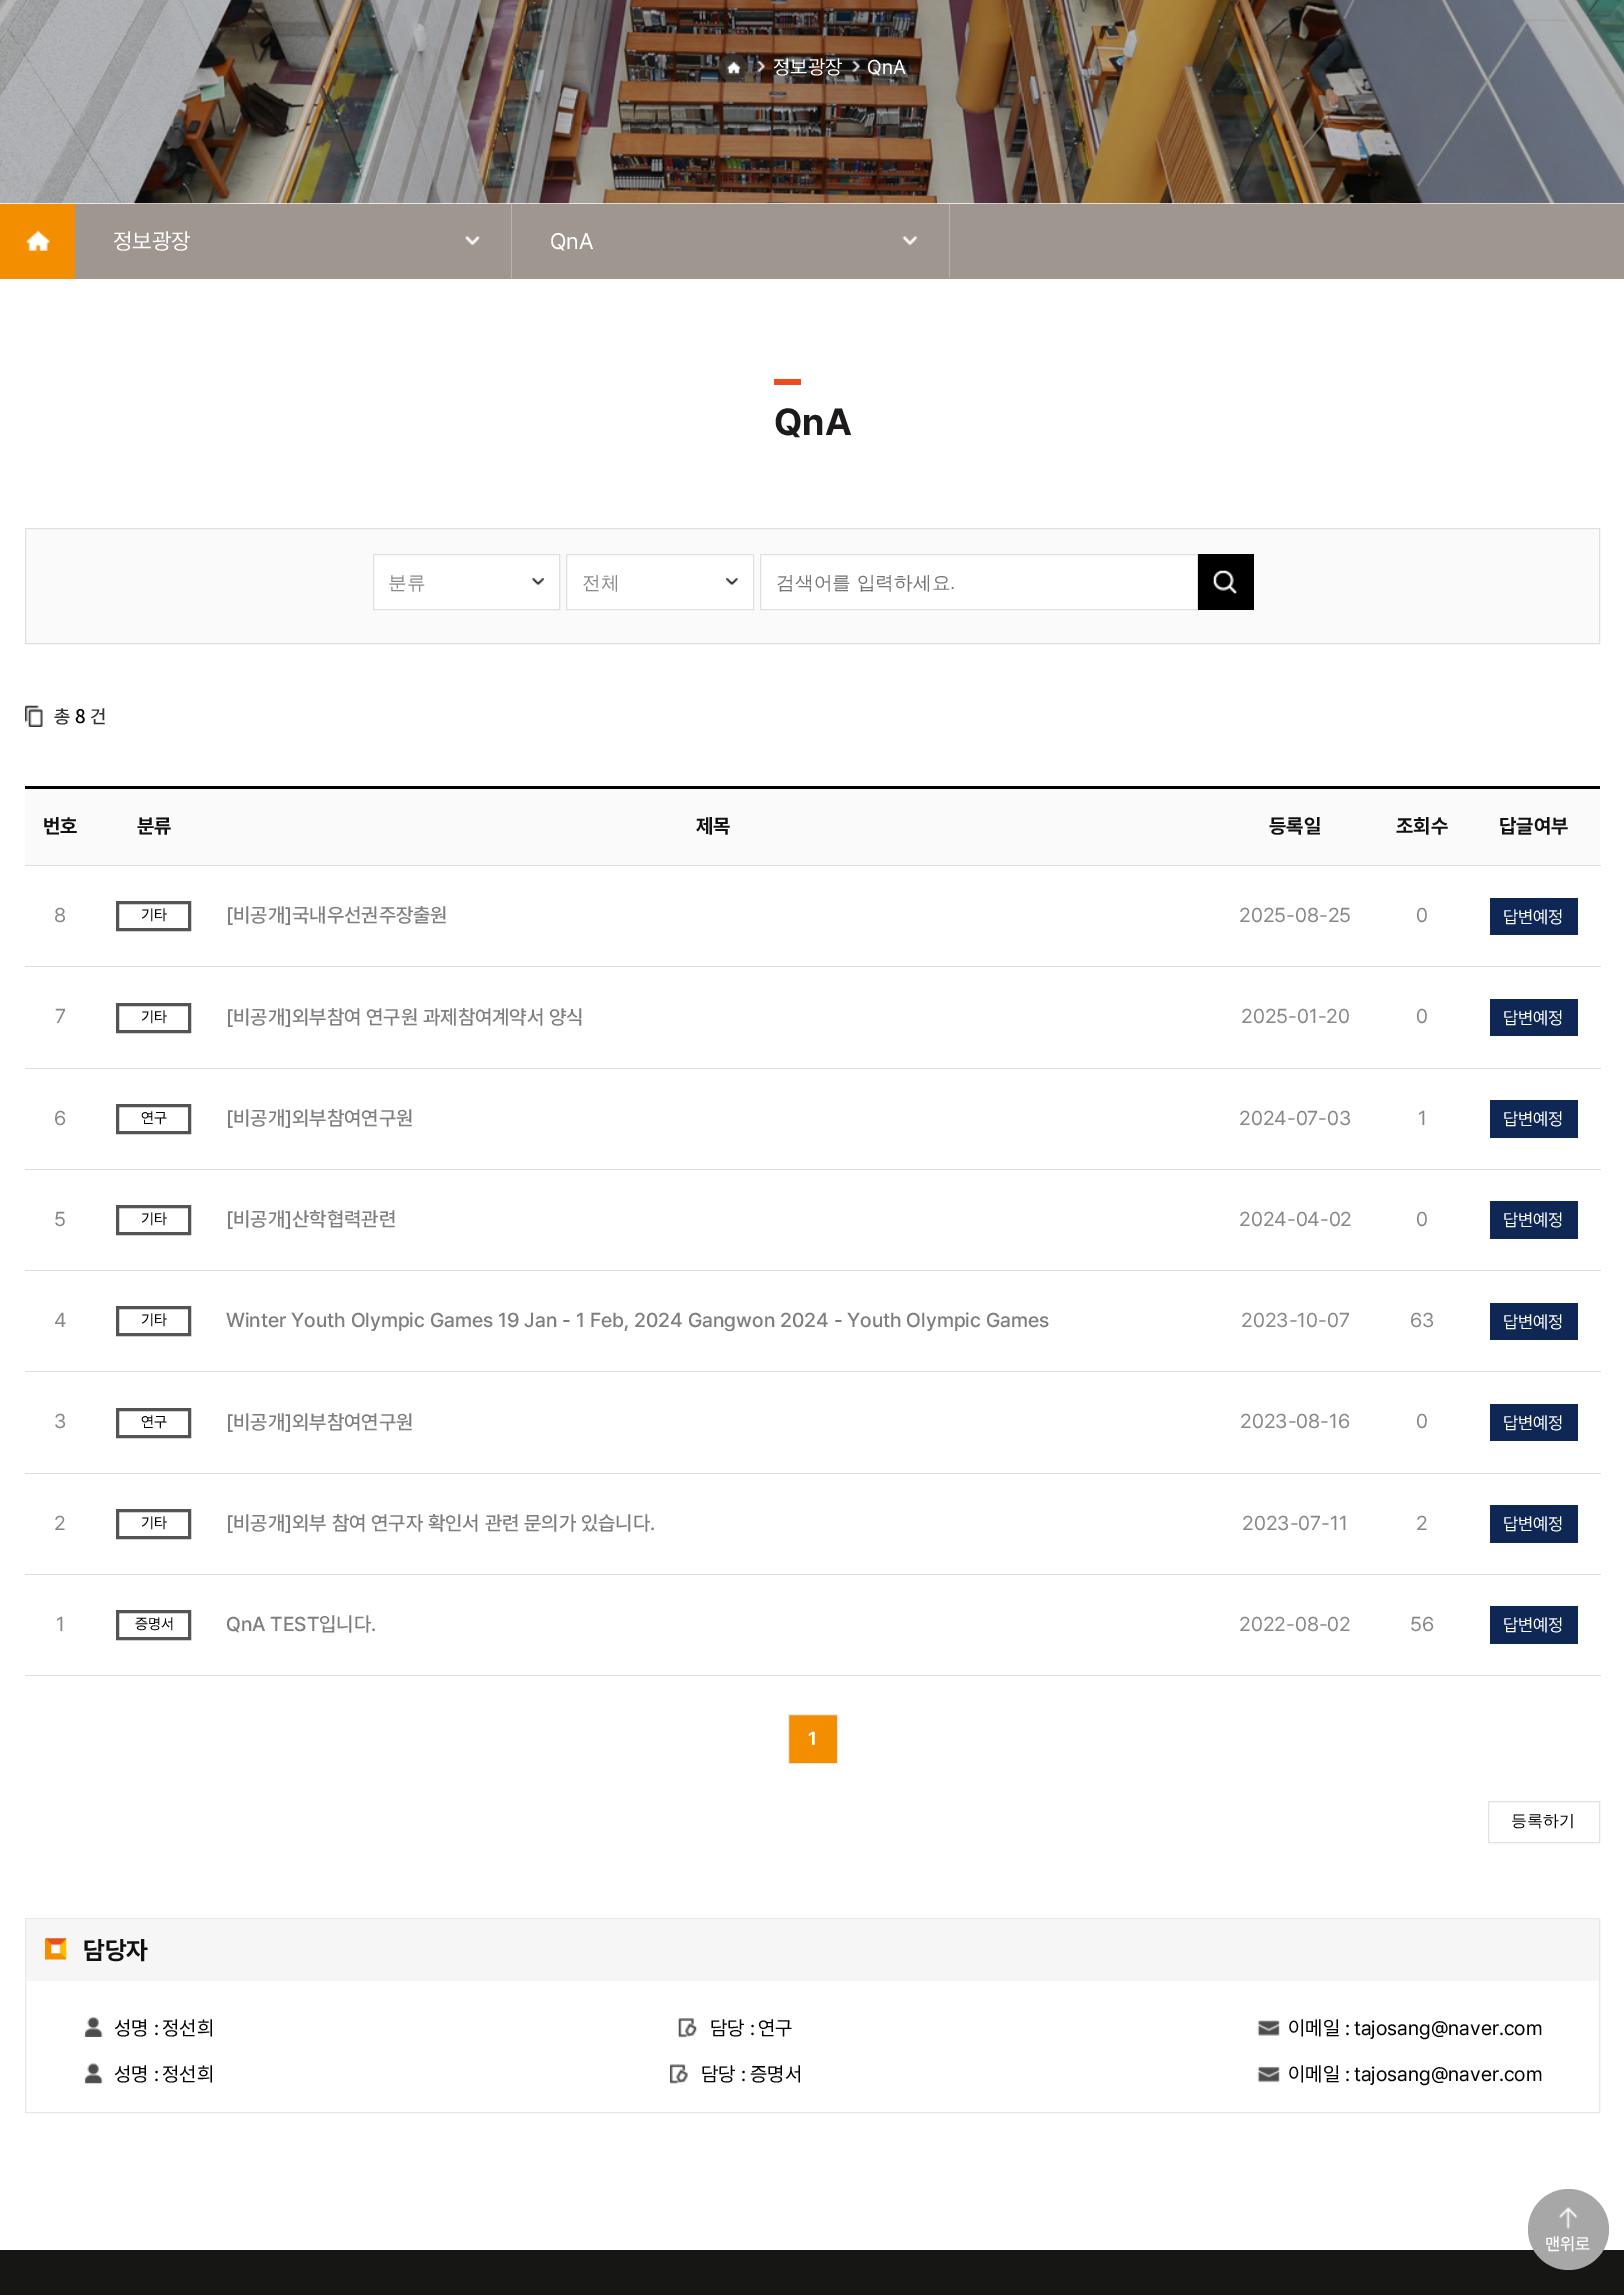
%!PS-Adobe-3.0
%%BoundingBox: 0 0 1624 2295
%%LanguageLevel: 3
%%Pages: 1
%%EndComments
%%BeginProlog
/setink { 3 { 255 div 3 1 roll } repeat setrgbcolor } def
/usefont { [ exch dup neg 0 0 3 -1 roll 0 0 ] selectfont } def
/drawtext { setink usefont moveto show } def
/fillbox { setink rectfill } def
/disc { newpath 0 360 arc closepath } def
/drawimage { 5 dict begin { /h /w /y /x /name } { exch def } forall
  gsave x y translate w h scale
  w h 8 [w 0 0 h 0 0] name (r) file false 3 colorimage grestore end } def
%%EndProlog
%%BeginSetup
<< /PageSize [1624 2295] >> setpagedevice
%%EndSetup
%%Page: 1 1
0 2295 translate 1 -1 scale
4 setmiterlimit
0 0 1624 2295 255 255 255 fillbox
(assets/img1.rgb) 0 0 1624 204 drawimage
(assets/img2.rgb) 718 53 30 29 drawimage
(assets/img3.rgb) 757 60 8 12 drawimage
(정보광장) 773 74 /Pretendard-Regular 20 255 255 255 drawtext
(assets/img4.rgb) 852 60 8 12 drawimage
(QnA) 867 74 /Pretendard-Regular 20 255 255 255 drawtext
75 204 1549 75 160 150 144 fillbox
0 204 75 75 242 142 0 fillbox
(assets/img5.rgb) 26 230 24 21 drawimage
511 204 1 75 187 178 172 fillbox
(정보광장) 113 249 /Pretendard-Regular 22.5 255 255 255 drawtext
(assets/img6.rgb) 465 236 15 10 drawimage
949 204 1 75 187 178 172 fillbox
(QnA) 550 249 /Pretendard-Regular 22.5 255 255 255 drawtext
(assets/img7.rgb) 902 236 16 10 drawimage
774 379 27 6 233 78 27 fillbox
(QnA) 774 435 /Pretendard-Bold 37.5 28 26 26 drawtext
250 250 250 setink
25.5 528.5 moveto 1599.5 528.5 lineto 1599.5 643.5 lineto 25.5 643.5 lineto closepath gsave fill grestore
224 224 224 setink
stroke
374 555 185 54 255 255 255 fillbox
(assets/img8.rgb) 532 578 12 7 drawimage
224 224 224 setink
373.5 554.5 186 55 rectstroke
(분류) 388 589 /WenQuanYiZenHei-Medium 18.75 136 136 136 drawtext
567 555 186 54 255 255 255 fillbox
(assets/img9.rgb) 726 578 12 7 drawimage
224 224 224 setink
566.5 554.5 187 55 rectstroke
(전체) 582 589 /WenQuanYiZenHei-Medium 18.75 136 136 136 drawtext
255 255 255 setink
760.5 554.5 moveto 1197.5 554.5 lineto 1197.5 609.5 lineto 760.5 609.5 lineto closepath gsave fill grestore
224 224 224 setink
stroke
(검색어를 입력하세요) 776 589 /WenQuanYiZenHei-Medium 18.75 117 117 117 drawtext
(.) 950 589 /LiberationSans-Regular 18.75 117 117 117 drawtext
1198 554 56 56 0 0 0 fillbox
(assets/img10.rgb) 1213 570 24 24 drawimage
(assets/img11.rgb) 25 705 18 22 drawimage
(총) 54 723 /Pretendard-Medium 18.75 51 51 51 drawtext
(8) 75 723 /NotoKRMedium-Medium 18.75 0 0 0 drawtext
(건) 90 723 /Pretendard-Medium 18.75 51 51 51 drawtext
25 786 1575 3 0 0 0 fillbox
25 789 1575 76 250 250 250 fillbox
(번호) 43 833 /Pretendard-Bold 20 17 17 17 drawtext
(분류) 137 833 /Pretendard-Bold 20 17 17 17 drawtext
(제목) 696 833 /Pretendard-Bold 20 17 17 17 drawtext
(등록일) 1269 833 /Pretendard-Bold 20 17 17 17 drawtext
(조회수) 1396 833 /Pretendard-Bold 20 17 17 17 drawtext
25 865 1576 1 222 222 222 fillbox
(답글여부) 1499 833 /Pretendard-Bold 20 17 17 17 drawtext
(8) 54 922 /Pretendard-Regular 20 136 136 136 drawtext
84 84 84 setink
3 setlinewidth
117.5 902.5 72 27 rectstroke
(기타) 141 920 /Pretendard-Regular 15 0 0 0 drawtext
([비공개]국내우선권주장출원) 226 922 /Pretendard-Medium 20 126 126 126 drawtext
(2025-08-25) 1239 922 /Pretendard-Regular 20 136 136 136 drawtext
(0) 1416 922 /Pretendard-Regular 20 136 136 136 drawtext
25 966 1576 1 222 222 222 fillbox
1490 898 88 37 14 39 85 fillbox
(답변예정) 1503 923 /Pretendard-Regular 17.5 255 255 255 drawtext
(7) 55 1023 /Pretendard-Regular 20 136 136 136 drawtext
84 84 84 setink
117.5 1004.5 72 27 rectstroke
(기타) 141 1022 /Pretendard-Regular 15 0 0 0 drawtext
([비공개]외부참여 연구원 과제참여계약서 양식) 226 1024 /Pretendard-Medium 20 126 126 126 drawtext
(2025-01-20) 1241 1023 /Pretendard-Regular 20 136 136 136 drawtext
(0) 1416 1023 /Pretendard-Regular 20 136 136 136 drawtext
25 1068 1576 1 222 222 222 fillbox
1490 999 88 37 14 39 85 fillbox
(답변예정) 1503 1024 /Pretendard-Regular 17.5 255 255 255 drawtext
(6) 54 1125 /Pretendard-Regular 20 136 136 136 drawtext
84 84 84 setink
117.5 1105.5 72 27 rectstroke
(연구) 141 1123 /Pretendard-Regular 15 0 0 0 drawtext
([비공개]외부참여연구원) 226 1125 /Pretendard-Medium 20 126 126 126 drawtext
(2024-07-03) 1239 1125 /Pretendard-Regular 20 136 136 136 drawtext
(1) 1418 1125 /Pretendard-Regular 20 136 136 136 drawtext
25 1169 1576 1 222 222 222 fillbox
1490 1100 88 38 14 39 85 fillbox
(답변예정) 1503 1125 /Pretendard-Regular 17.5 255 255 255 drawtext
(5) 54 1226 /Pretendard-Regular 20 136 136 136 drawtext
84 84 84 setink
117.5 1206.5 72 27 rectstroke
(기타) 141 1224 /Pretendard-Regular 15 0 0 0 drawtext
([비공개]산학협력관련) 226 1226 /Pretendard-Medium 20 126 126 126 drawtext
(2024-04-02) 1239 1226 /Pretendard-Regular 20 136 136 136 drawtext
(0) 1416 1226 /Pretendard-Regular 20 136 136 136 drawtext
25 1270 1576 1 222 222 222 fillbox
1490 1201 88 38 14 39 85 fillbox
(답변예정) 1503 1226 /Pretendard-Regular 17.5 255 255 255 drawtext
(4) 54 1327 /Pretendard-Regular 20 136 136 136 drawtext
84 84 84 setink
117.5 1307.5 72 27 rectstroke
(기타) 141 1325 /Pretendard-Regular 15 0 0 0 drawtext
(Winter Youth Olympic Games 19 Jan - 1 Feb, 2024 Gangwon 2024 - Youth Olympic Games) 226 1327 /Pretendard-Medium 20 126 126 126 drawtext
(2023-10-07) 1241 1327 /Pretendard-Regular 20 136 136 136 drawtext
(63) 1410 1327 /Pretendard-Regular 20 136 136 136 drawtext
25 1371 1576 1 222 222 222 fillbox
1490 1303 88 37 14 39 85 fillbox
(답변예정) 1503 1328 /Pretendard-Regular 17.5 255 255 255 drawtext
(3) 54 1428 /Pretendard-Regular 20 136 136 136 drawtext
84 84 84 setink
117.5 1409.5 72 27 rectstroke
(연구) 141 1427 /Pretendard-Regular 15 0 0 0 drawtext
([비공개]외부참여연구원) 226 1429 /Pretendard-Medium 20 126 126 126 drawtext
(2023-08-16) 1240 1428 /Pretendard-Regular 20 136 136 136 drawtext
(0) 1416 1428 /Pretendard-Regular 20 136 136 136 drawtext
25 1473 1576 1 222 222 222 fillbox
1490 1404 88 37 14 39 85 fillbox
(답변예정) 1503 1429 /Pretendard-Regular 17.5 255 255 255 drawtext
(2) 54 1530 /Pretendard-Regular 20 136 136 136 drawtext
84 84 84 setink
117.5 1510.5 72 27 rectstroke
(기타) 141 1528 /Pretendard-Regular 15 0 0 0 drawtext
([비공개]외부 참여 연구자 확인서 관련 문의가 있습니다.) 226 1530 /Pretendard-Medium 20 126 126 126 drawtext
(2023-07-11) 1242 1530 /Pretendard-Regular 20 136 136 136 drawtext
(2) 1416 1530 /Pretendard-Regular 20 136 136 136 drawtext
25 1574 1576 1 222 222 222 fillbox
1490 1505 88 38 14 39 85 fillbox
(답변예정) 1503 1530 /Pretendard-Regular 17.5 255 255 255 drawtext
(1) 56 1631 /Pretendard-Regular 20 136 136 136 drawtext
84 84 84 setink
117.5 1611.5 72 27 rectstroke
(증명서) 135 1629 /Pretendard-Regular 15 0 0 0 drawtext
(QnA TEST입니다.) 226 1631 /Pretendard-Medium 20 126 126 126 drawtext
(2022-08-02) 1239 1631 /Pretendard-Regular 20 136 136 136 drawtext
(56) 1410 1631 /Pretendard-Regular 20 136 136 136 drawtext
25 1675 1576 1 222 222 222 fillbox
1490 1606 88 38 14 39 85 fillbox
(답변예정) 1503 1631 /Pretendard-Regular 17.5 255 255 255 drawtext
242 142 0 setink
788.5 1714.5 moveto 837.5 1714.5 lineto 837.5 1763.5 lineto 788.5 1763.5 lineto closepath gsave fill grestore
233 233 233 setink
1 setlinewidth
stroke
(1) 808 1745 /Pretendard-Bold 18.75 255 255 255 drawtext
226 226 226 setink
1488.5 1801.5 111 41 rectstroke
(등록하기) 1511 1826 /WenQuanYiZenHei-Medium 16 0 0 0 drawtext
232 232 232 setink
25.5 1918.5 1574 194 rectstroke
26 1919 1573 62 246 246 247 fillbox
(assets/img12.rgb) 45 1938 22 22 drawimage
(담당자) 83 1959 /Pretendard-Bold 25 17 17 17 drawtext
(assets/img13.rgb) 84 2016 19 21 drawimage
(성명 :) 114 2035 /Pretendard-Regular 20 0 0 0 drawtext
(정선희) 162 2035 /Pretendard-Regular 20 0 0 0 drawtext
(assets/img14.rgb) 678 2018 19 20 drawimage
(담당 :) 710 2035 /Pretendard-Regular 20 0 0 0 drawtext
(연구) 758 2035 /Pretendard-Regular 20 0 0 0 drawtext
(assets/img15.rgb) 1257 2020 23 16 drawimage
(이메일 :) 1288 2035 /Pretendard-Regular 20 0 0 0 drawtext
(tajosang@naver.com) 1354 2035 /Pretendard-Regular 20 0 0 0 drawtext
(assets/img16.rgb) 84 2063 19 21 drawimage
(성명 :) 114 2081 /Pretendard-Regular 20 0 0 0 drawtext
(정선희) 162 2081 /Pretendard-Regular 20 0 0 0 drawtext
(assets/img17.rgb) 670 2064 18 20 drawimage
(담당 :) 701 2081 /Pretendard-Regular 20 0 0 0 drawtext
(증명서) 750 2081 /Pretendard-Regular 20 0 0 0 drawtext
(assets/img18.rgb) 1257 2066 23 17 drawimage
(이메일 :) 1288 2081 /Pretendard-Regular 20 0 0 0 drawtext
(tajosang@naver.com) 1354 2081 /Pretendard-Regular 20 0 0 0 drawtext
0 2250 1624 45 22 22 21 fillbox
167 167 167 setink
1568.5 2229.5 40.5 disc fill
(assets/img19.rgb) 1558 2207 20 22 drawimage
(맨위로) 1545 2250 /Pretendard-Medium 17.5 255 255 255 drawtext
showpage
%%EOF
